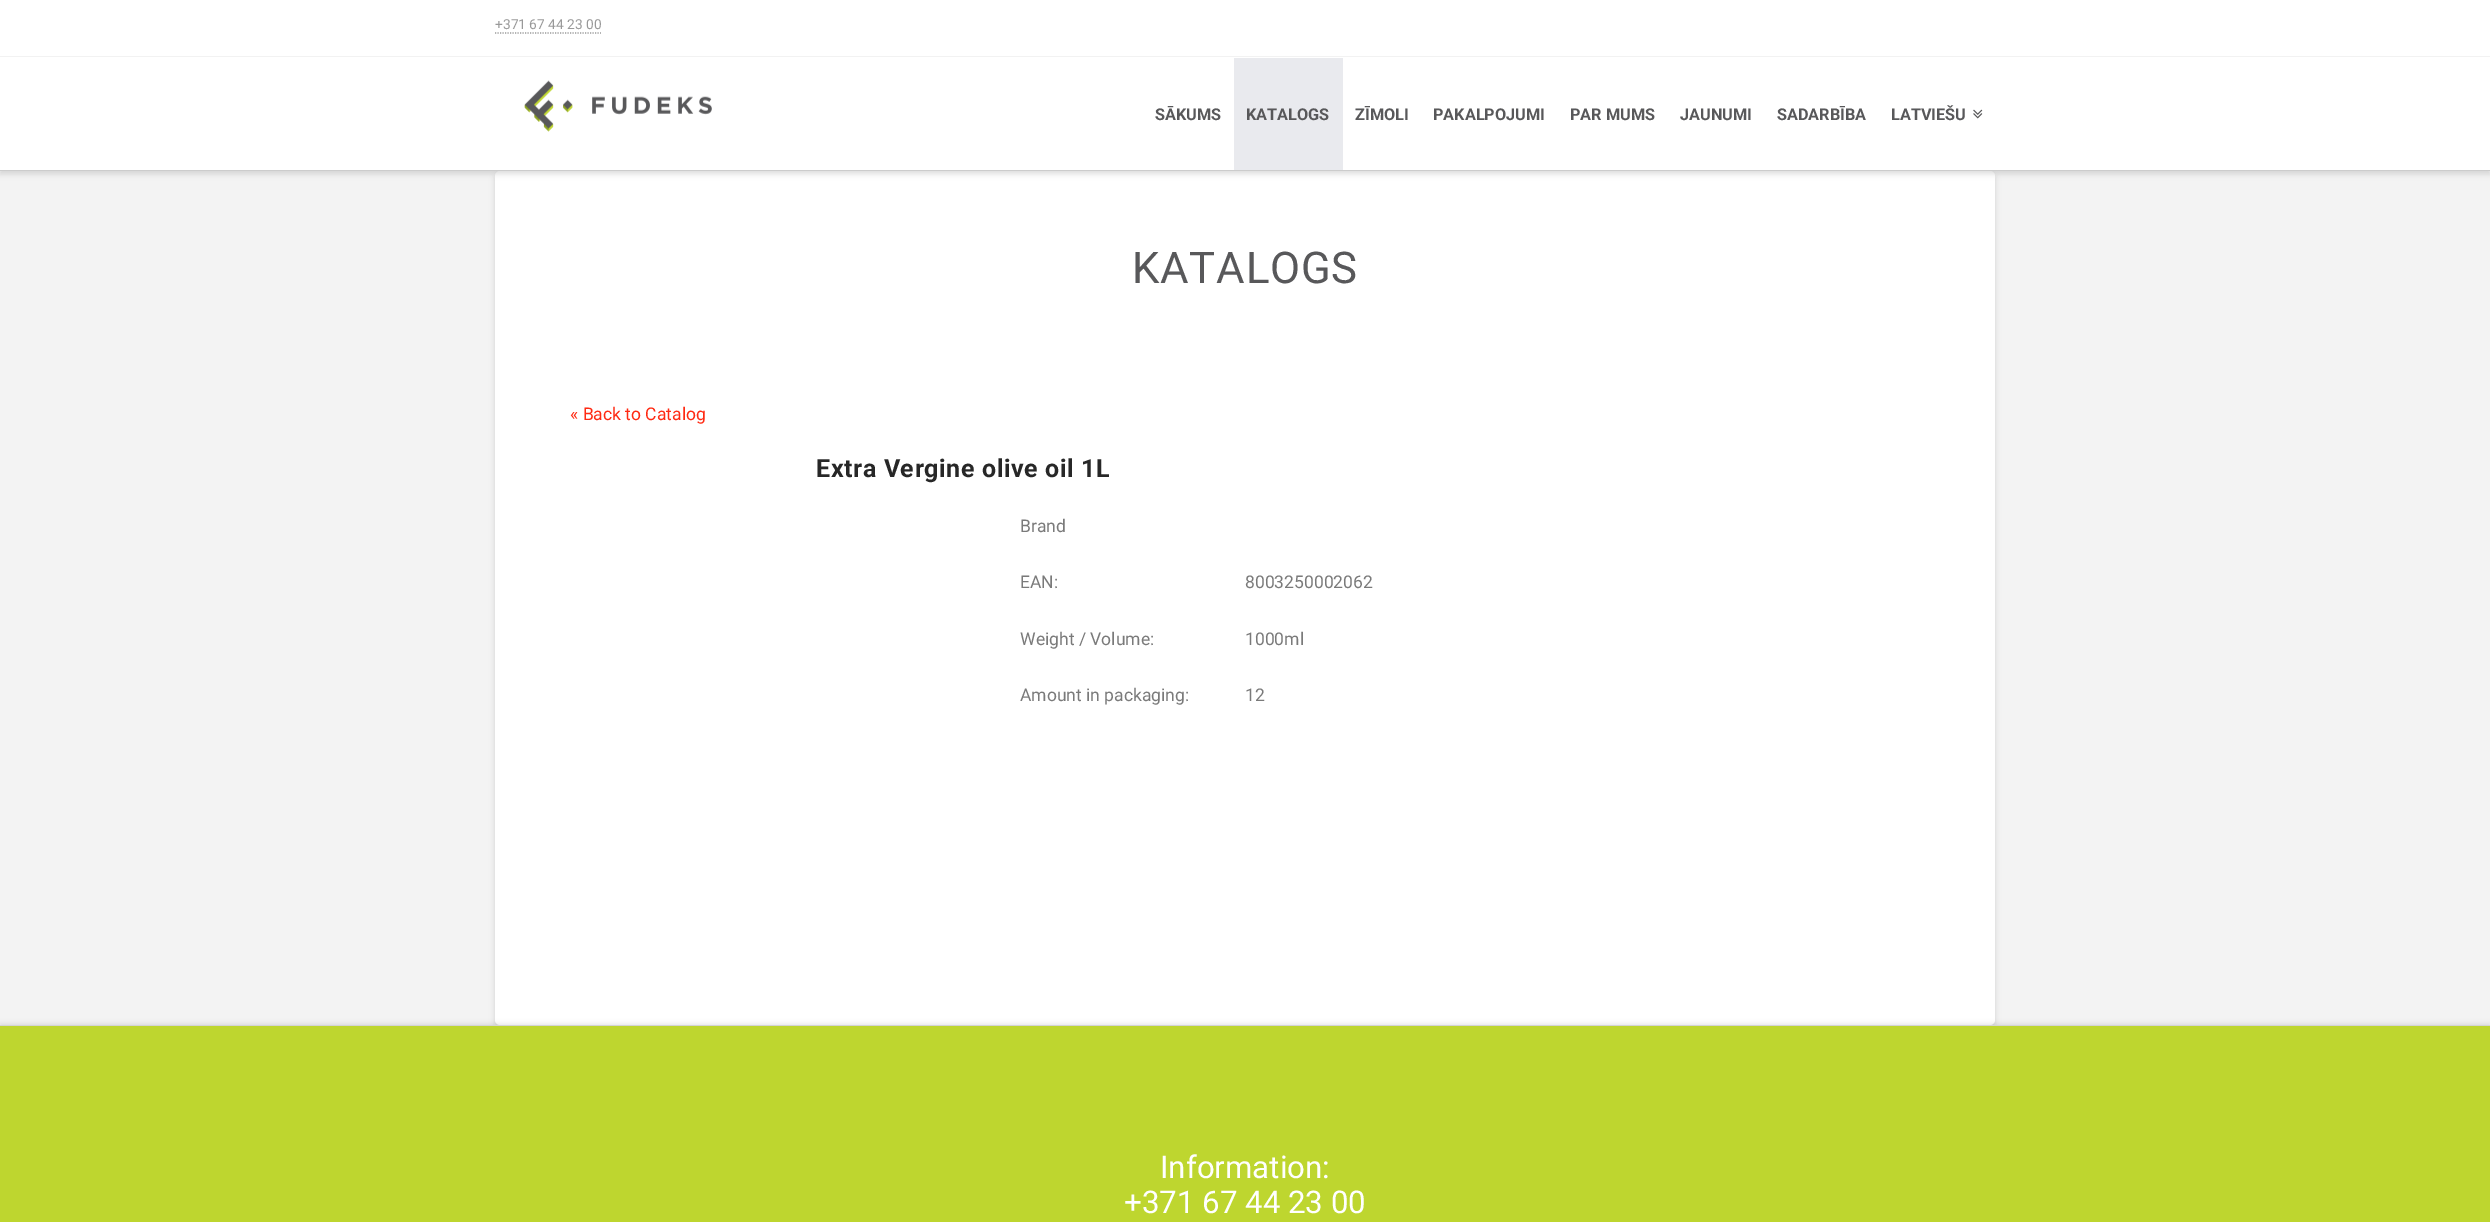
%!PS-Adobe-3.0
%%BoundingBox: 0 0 2490 1222
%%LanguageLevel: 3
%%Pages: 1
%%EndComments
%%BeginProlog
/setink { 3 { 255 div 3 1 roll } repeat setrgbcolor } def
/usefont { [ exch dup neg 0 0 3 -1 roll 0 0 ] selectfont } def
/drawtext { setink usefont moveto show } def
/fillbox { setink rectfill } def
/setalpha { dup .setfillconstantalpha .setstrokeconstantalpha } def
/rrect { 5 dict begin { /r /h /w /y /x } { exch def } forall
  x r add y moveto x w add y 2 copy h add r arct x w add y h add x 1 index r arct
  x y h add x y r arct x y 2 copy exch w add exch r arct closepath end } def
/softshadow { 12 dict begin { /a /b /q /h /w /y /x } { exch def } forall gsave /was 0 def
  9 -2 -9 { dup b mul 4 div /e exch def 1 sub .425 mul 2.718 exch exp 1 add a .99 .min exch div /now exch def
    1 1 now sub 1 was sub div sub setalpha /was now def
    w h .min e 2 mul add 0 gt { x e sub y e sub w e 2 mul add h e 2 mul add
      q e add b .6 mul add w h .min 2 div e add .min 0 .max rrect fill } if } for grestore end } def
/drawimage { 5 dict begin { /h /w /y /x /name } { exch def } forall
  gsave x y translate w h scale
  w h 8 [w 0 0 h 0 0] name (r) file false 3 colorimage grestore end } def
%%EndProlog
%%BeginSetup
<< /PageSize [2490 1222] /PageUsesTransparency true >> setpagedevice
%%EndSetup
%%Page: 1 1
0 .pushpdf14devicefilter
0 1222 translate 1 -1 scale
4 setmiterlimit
0 0 2490 1222 243 243 243 fillbox
0 0 0 setink
495 174 1500 854 5 3 0.13 softshadow
255 255 255 setink
495 171 1500 854 5 rrect fill
0 0 0 setink
0 60 2490 114 0 3 0.13 softshadow
0 0 2490 170 255 255 255 fillbox
0 56 2490 1 242 242 242 fillbox
(+371 67 44 23 00) 495 29 /Roboto-Regular 13.75 153 153 153 drawtext
1.2 setlinewidth
[1.25 1.25] 0 setdash
495 33 moveto 601 33 lineto stroke
0 170 2490 1 204 204 204 fillbox
(assets/img1.rgb) 524 80 188 52 drawimage
(SĀKUMS) 1155 120 /Roboto-Bold 16.25 88 88 90 drawtext
1234 58 109 112 233 234 238 fillbox
(KATALOGS) 1246 120 /Roboto-Bold 16.25 88 88 90 drawtext
(ZĪMOLI) 1355 120 /Roboto-Bold 16.25 88 88 90 drawtext
(PAKALPOJUMI) 1433 120 /Roboto-Bold 16.25 88 88 90 drawtext
(PAR MUMS) 1570 120 /Roboto-Bold 16.25 88 88 90 drawtext
(JAUNUMI) 1680 120 /Roboto-Bold 16.25 88 88 90 drawtext
(SADARBĪBA) 1777 120 /Roboto-Bold 16.25 88 88 90 drawtext
(LATVIEŠU) 1891 120 /Roboto-Bold 16.25 88 88 90 drawtext
(assets/img2.rgb) 1973 109 10 10 drawimage
/Roboto-Regular 43.75 usefont
1132 283 moveto 0.75 0 (KATALOGS) ashow
(« Back to Catalog) 570 420 /Roboto-Regular 17.5 255 42 19 drawtext
/Roboto-Bold 25 usefont
39 39 39 setink
816 477 moveto 0.6 0 (Extra Vergine olive oil 1L) ashow
(Brand) 1020 532 /Roboto-Regular 17.5 122 122 122 drawtext
(EAN:) 1020 588 /Roboto-Regular 17.5 122 122 122 drawtext
(8003250002062) 1245 588 /Roboto-Regular 17.5 122 122 122 drawtext
(Weight / Volume:) 1020 645 /Roboto-Regular 17.5 122 122 122 drawtext
(1000ml) 1245 645 /Roboto-Regular 17.5 122 122 122 drawtext
(Amount in packaging:) 1020 701 /Roboto-Regular 17.5 122 122 122 drawtext
(12) 1245 701 /Roboto-Regular 17.5 122 122 122 drawtext
0 0 0 setink
0 1023 2490 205 0 2 0.07 softshadow
0 1026 2490 196 190 214 47 fillbox
0 1025 2490 1 212 212 212 fillbox
(Information:) 1160 1178 /Roboto-Regular 31.25 255 255 255 drawtext
(+371 67 44 23 00) 1124 1213 /Roboto-Regular 31.25 255 255 255 drawtext
.poppdf14devicefilter showpage
%%EOF
